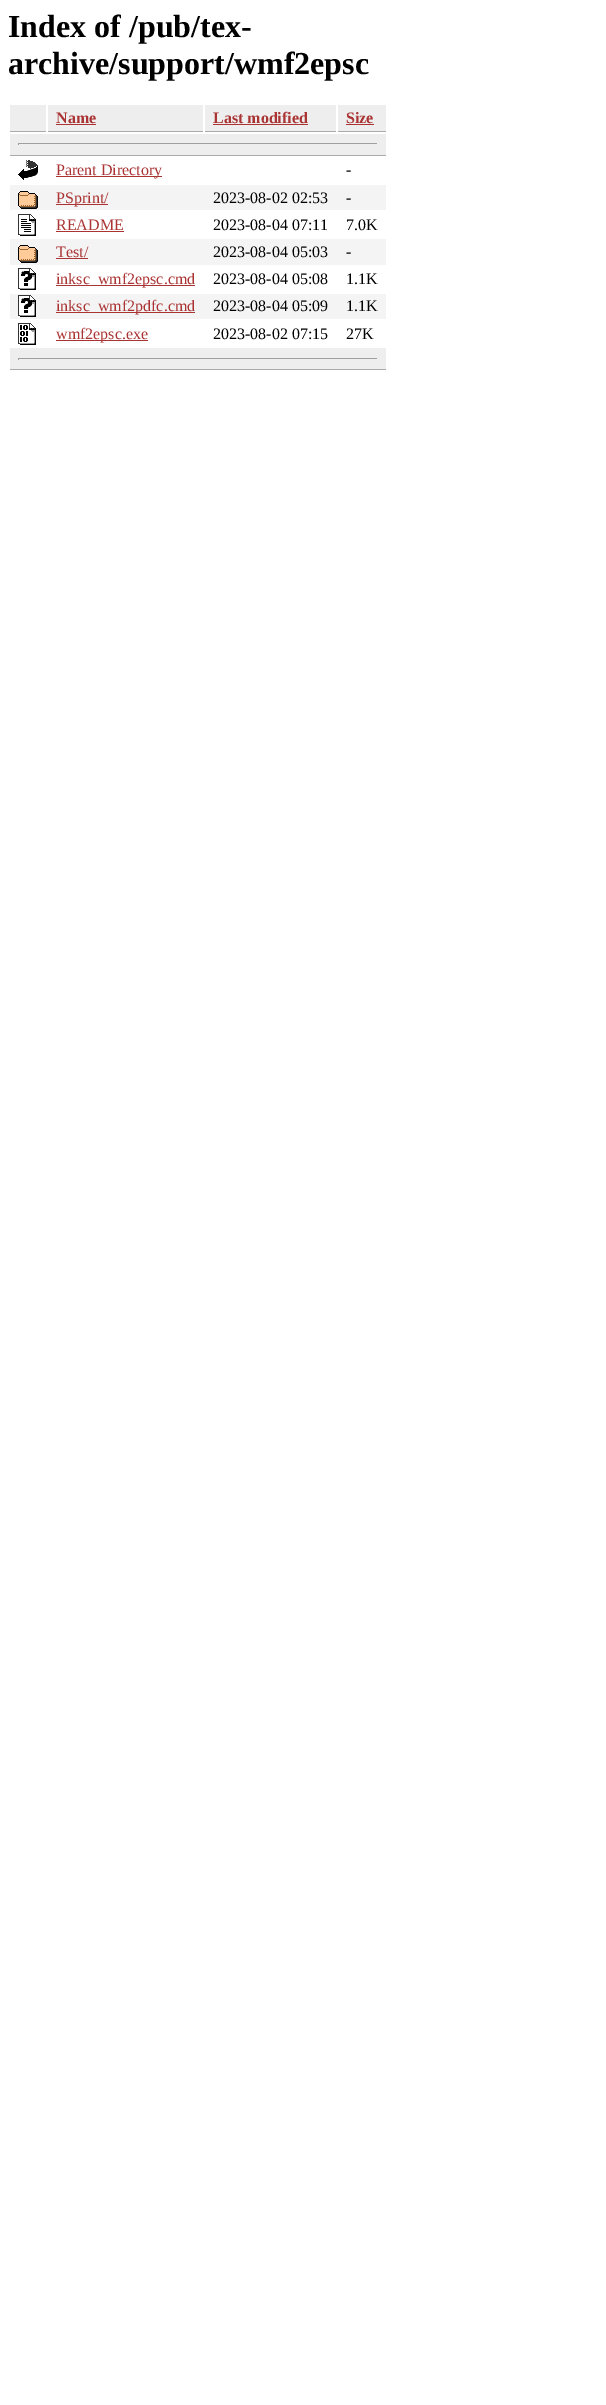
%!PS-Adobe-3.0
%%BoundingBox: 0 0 606 2405
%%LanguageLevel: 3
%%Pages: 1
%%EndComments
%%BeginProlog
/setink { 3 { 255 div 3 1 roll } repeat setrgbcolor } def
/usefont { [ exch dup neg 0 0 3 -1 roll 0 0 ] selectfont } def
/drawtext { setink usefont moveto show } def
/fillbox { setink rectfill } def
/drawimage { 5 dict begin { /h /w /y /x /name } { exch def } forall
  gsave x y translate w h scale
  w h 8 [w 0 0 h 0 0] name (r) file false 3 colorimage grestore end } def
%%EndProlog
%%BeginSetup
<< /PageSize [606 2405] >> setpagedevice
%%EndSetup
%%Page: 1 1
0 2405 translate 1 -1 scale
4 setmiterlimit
0 0 606 2405 255 255 255 fillbox
(Index of /pub/tex-) 8 37 /LiberationSerif-Bold 32 0 0 0 drawtext
(archive/support/wmf2epsc) 8 74 /LiberationSerif-Bold 32 0 0 0 drawtext
10 105 36 26 238 238 238 fillbox
10 131 36 1 170 170 170 fillbox
48 105 155 26 238 238 238 fillbox
48 131 155 1 170 170 170 fillbox
(Name) 56 123 /LiberationSerif-Bold 16 170 51 51 drawtext
56 124 40 1 170 51 51 fillbox
205 105 131 26 238 238 238 fillbox
205 131 131 1 170 170 170 fillbox
(Last modified) 213 123 /LiberationSerif-Bold 16 170 51 51 drawtext
213 124 95 1 170 51 51 fillbox
338 105 48 26 238 238 238 fillbox
338 131 48 1 170 170 170 fillbox
(Size) 346 123 /LiberationSerif-Bold 16 170 51 51 drawtext
346 124 28 1 170 51 51 fillbox
10 134 376 21 238 238 238 fillbox
10 155 376 1 170 170 170 fillbox
18 143 360 1 159 159 159 fillbox
377 143 1 2 238 238 238 fillbox
18 143 1 2 159 159 159 fillbox
(assets/img1.rgb) 18 160 20 20 drawimage
56 176 106 1 170 51 51 fillbox
(Parent Directory) 56 175 /LiberationSerif-Regular 16 170 51 51 drawtext
(-) 346 175 /LiberationSerif-Regular 16 0 0 0 drawtext
10 185 376 25 244 244 244 fillbox
(assets/img2.rgb) 18 191 20 18 drawimage
56 204 52 1 170 51 51 fillbox
(PSprint/) 56 203 /LiberationSerif-Regular 16 170 51 51 drawtext
(2023-08-02 02:53) 213 203 /LiberationSerif-Regular 16 0 0 0 drawtext
(-) 346 203 /LiberationSerif-Regular 16 0 0 0 drawtext
(assets/img3.rgb) 18 214 18 22 drawimage
(README) 56 230 /LiberationSerif-Regular 16 170 51 51 drawtext
56 231 68 1 170 51 51 fillbox
(2023-08-04 07:11) 213 230 /LiberationSerif-Regular 16 0 0 0 drawtext
(7.0K) 346 230 /LiberationSerif-Regular 16 0 0 0 drawtext
10 239 376 26 244 244 244 fillbox
(assets/img2.rgb) 18 245 20 18 drawimage
(Test/) 56 257 /LiberationSerif-Regular 16 170 51 51 drawtext
56 258 32 1 170 51 51 fillbox
(2023-08-04 05:03) 213 257 /LiberationSerif-Regular 16 0 0 0 drawtext
(-) 346 257 /LiberationSerif-Regular 16 0 0 0 drawtext
(assets/img4.rgb) 18 268 18 22 drawimage
56 285 139 1 170 51 51 fillbox
(inksc_wmf2epsc.cmd) 56 284 /LiberationSerif-Regular 16 170 51 51 drawtext
(2023-08-04 05:08) 213 284 /LiberationSerif-Regular 16 0 0 0 drawtext
(1.1K) 346 284 /LiberationSerif-Regular 16 0 0 0 drawtext
10 294 376 25 244 244 244 fillbox
(assets/img5.rgb) 18 295 18 22 drawimage
56 312 139 1 170 51 51 fillbox
(inksc_wmf2pdfc.cmd) 56 311 /LiberationSerif-Regular 16 170 51 51 drawtext
(2023-08-04 05:09) 213 311 /LiberationSerif-Regular 16 0 0 0 drawtext
(1.1K) 346 311 /LiberationSerif-Regular 16 0 0 0 drawtext
(assets/img6.rgb) 18 323 18 22 drawimage
56 340 92 1 170 51 51 fillbox
(wmf2epsc.exe) 56 339 /LiberationSerif-Regular 16 170 51 51 drawtext
(2023-08-02 07:15) 213 339 /LiberationSerif-Regular 16 0 0 0 drawtext
(27K) 346 339 /LiberationSerif-Regular 16 0 0 0 drawtext
10 348 376 21 238 238 238 fillbox
10 369 376 1 170 170 170 fillbox
18 358 360 1 159 159 159 fillbox
377 358 1 2 238 238 238 fillbox
18 358 1 2 159 159 159 fillbox
showpage
%%EOF
